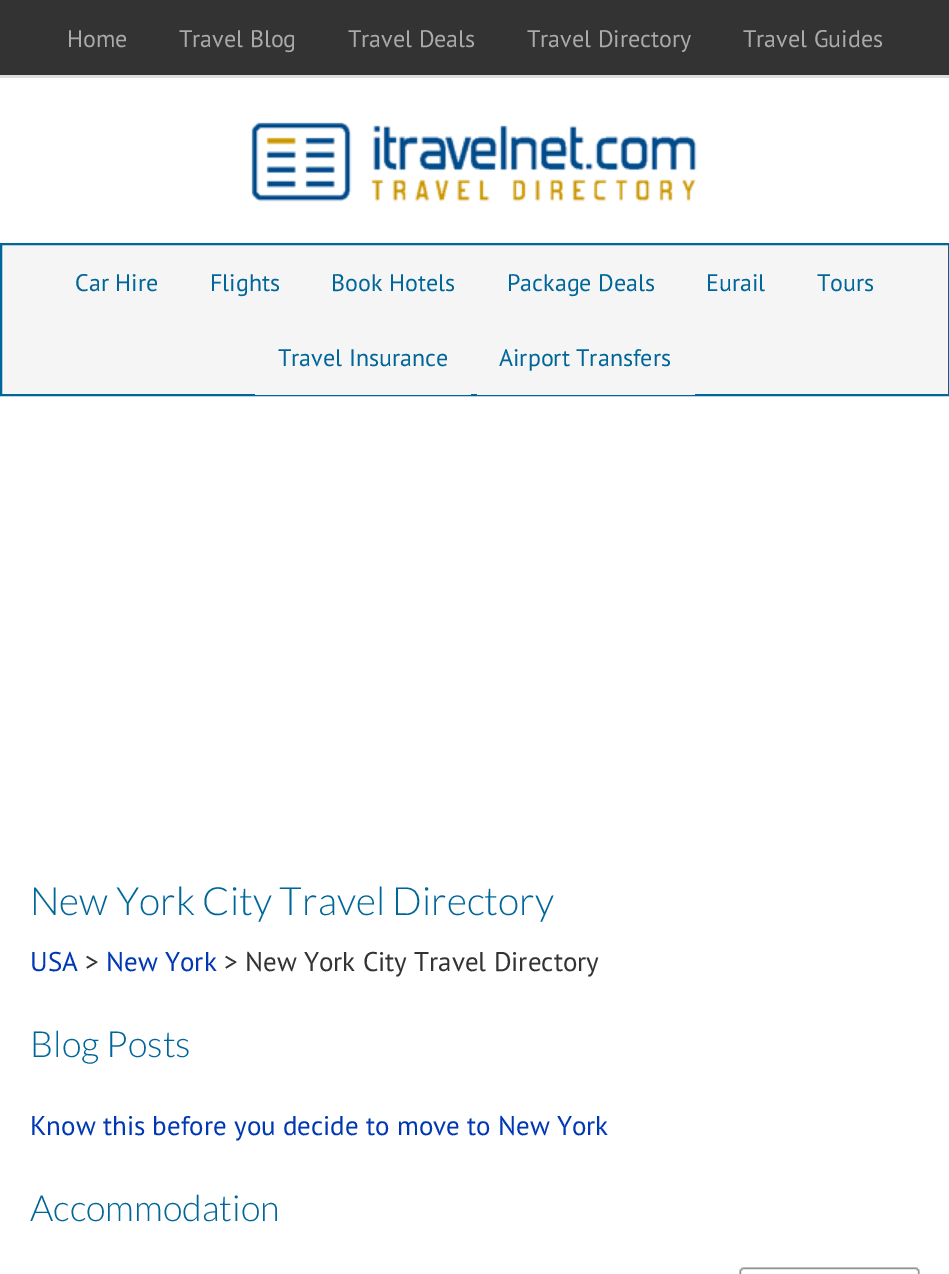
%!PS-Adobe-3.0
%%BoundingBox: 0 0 949 1274
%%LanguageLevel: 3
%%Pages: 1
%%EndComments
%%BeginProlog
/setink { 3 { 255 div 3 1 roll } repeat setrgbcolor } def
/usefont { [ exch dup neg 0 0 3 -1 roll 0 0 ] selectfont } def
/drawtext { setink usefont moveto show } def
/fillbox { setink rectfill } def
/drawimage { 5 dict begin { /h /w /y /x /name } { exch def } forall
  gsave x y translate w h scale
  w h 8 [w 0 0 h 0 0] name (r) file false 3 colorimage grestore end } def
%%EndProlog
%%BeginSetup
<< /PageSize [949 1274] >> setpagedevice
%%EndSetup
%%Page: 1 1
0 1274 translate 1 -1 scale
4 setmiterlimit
0 0 949 1274 255 255 255 fillbox
0 0 949 75 51 51 51 fillbox
0 75 949 3 221 221 221 fillbox
(Home) 67 47 /PTSans-Regular 24 170 170 170 drawtext
(Travel Blog) 179 47 /PTSans-Regular 24 170 170 170 drawtext
(Travel Deals) 348 47 /PTSans-Regular 24 170 170 170 drawtext
(Travel Directory) 527 47 /PTSans-Regular 24 170 170 170 drawtext
(Travel Guides) 743 47 /PTSans-Regular 24 170 170 170 drawtext
(assets/img1.rgb) 251 122 446 80 drawimage
245 245 245 setink
1 244 moveto 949 244 lineto 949 395 lineto 1 395 lineto closepath gsave fill grestore
0 102 153 setink
2 setlinewidth
stroke
(Car Hire) 75 291 /PTSans-Regular 24 0 102 153 drawtext
(Flights) 210 291 /PTSans-Regular 24 0 102 153 drawtext
(Book Hotels) 331 291 /PTSans-Regular 24 0 102 153 drawtext
(Package Deals) 507 291 /PTSans-Regular 24 0 102 153 drawtext
(Eurail) 706 291 /PTSans-Regular 24 0 102 153 drawtext
(Tours) 817 291 /PTSans-Regular 24 0 102 153 drawtext
255 394 216 1 245 245 245 fillbox
(Travel Insurance) 278 366 /PTSans-Regular 24 0 102 153 drawtext
477 394 218 1 245 245 245 fillbox
(Airport Transfers) 499 366 /PTSans-Regular 24 0 102 153 drawtext
(New York City Travel Directory) 30 915 /Lato-Light 39 0 102 153 drawtext
(USA) 30 971 /PTSans-Regular 27 0 55 180 drawtext
(>) 85 971 /PTSans-Regular 27 51 51 51 drawtext
(New York) 106 971 /PTSans-Regular 27 0 55 180 drawtext
(> New York City Travel Directory) 224 971 /PTSans-Regular 27 51 51 51 drawtext
(Blog Posts) 30 1057 /Lato-Light 36 0 102 153 drawtext
(Know this before you decide to move to New York) 30 1135 /PTSans-Regular 27 0 55 180 drawtext
(Accommodation) 30 1221 /Lato-Light 36 0 102 153 drawtext
(assets/img2.rgb) 739 1267 181 7 drawimage
showpage
%%EOF
